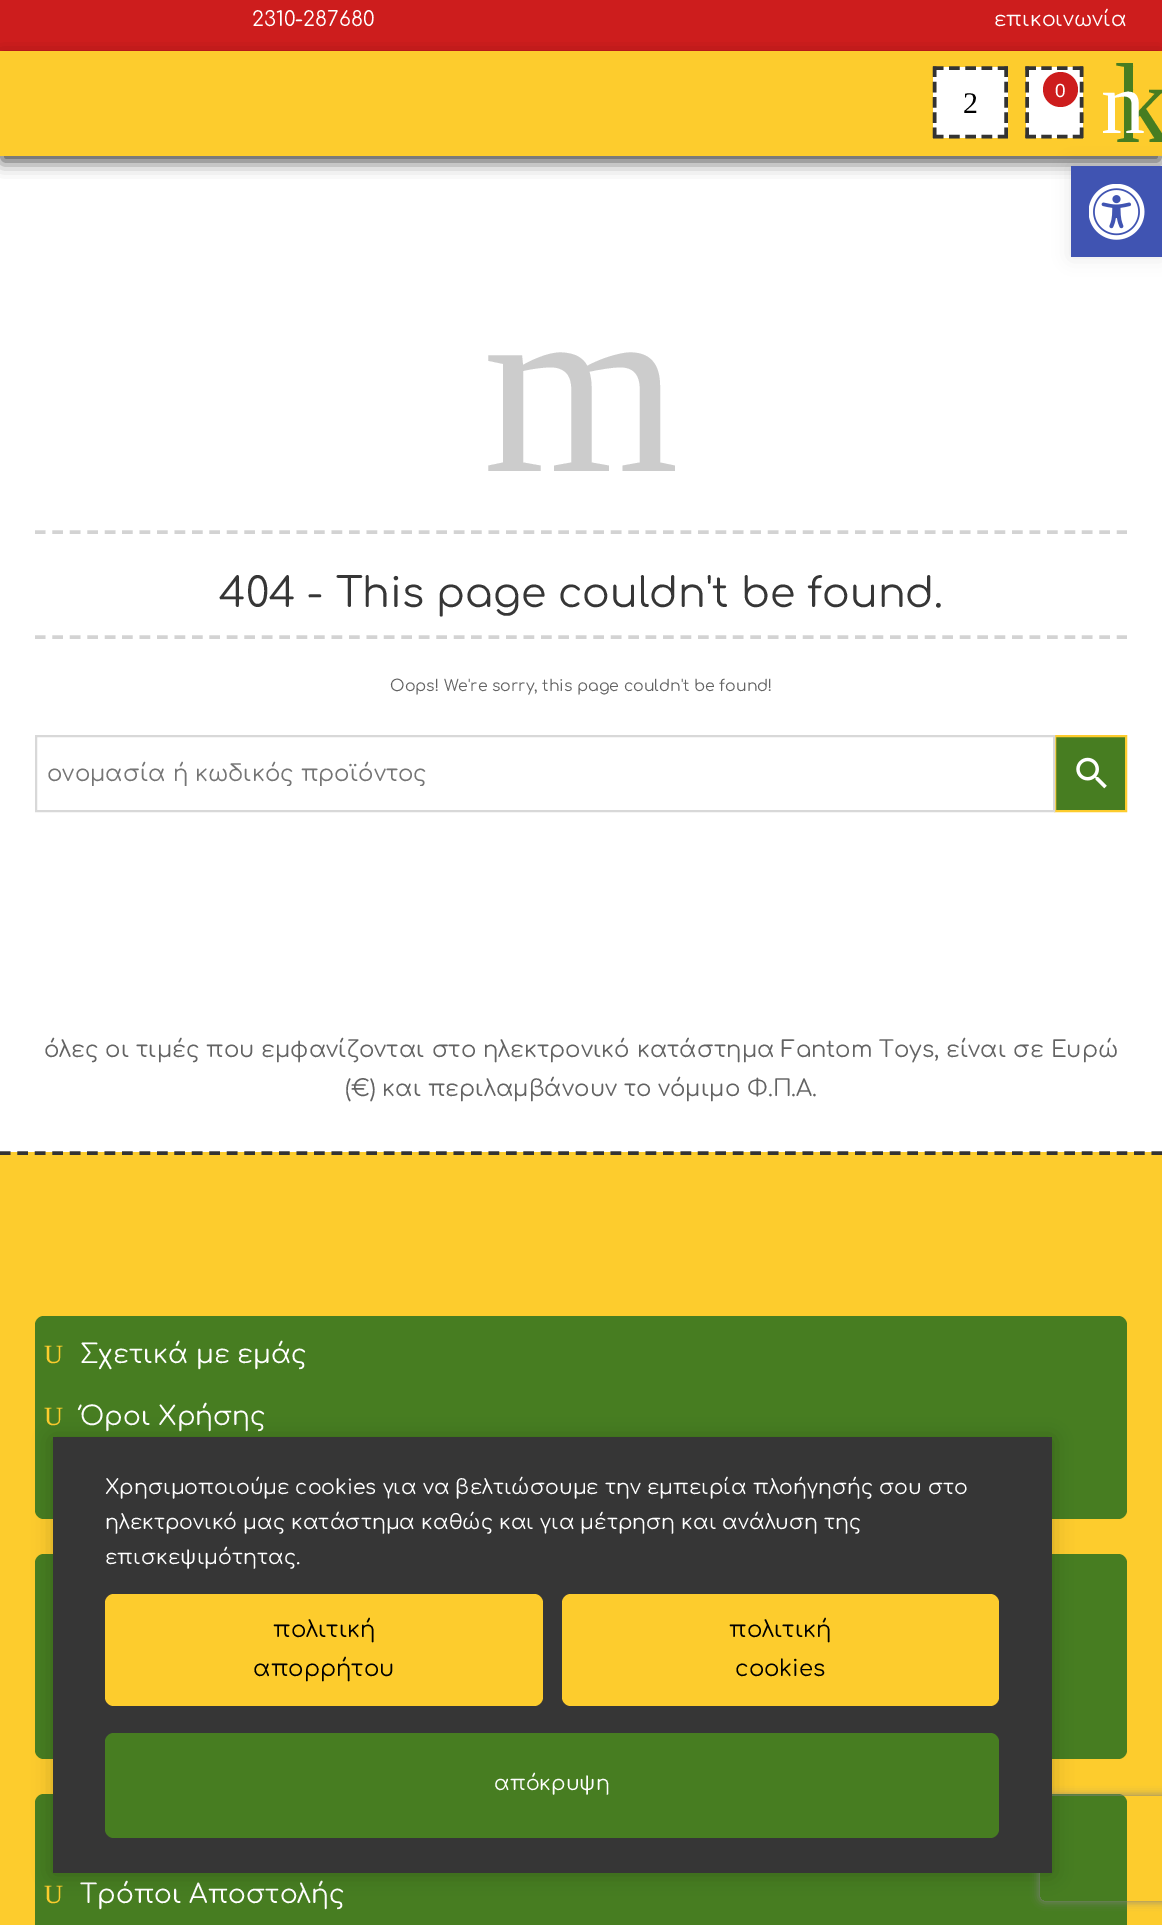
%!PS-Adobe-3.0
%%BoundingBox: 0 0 1162 1925
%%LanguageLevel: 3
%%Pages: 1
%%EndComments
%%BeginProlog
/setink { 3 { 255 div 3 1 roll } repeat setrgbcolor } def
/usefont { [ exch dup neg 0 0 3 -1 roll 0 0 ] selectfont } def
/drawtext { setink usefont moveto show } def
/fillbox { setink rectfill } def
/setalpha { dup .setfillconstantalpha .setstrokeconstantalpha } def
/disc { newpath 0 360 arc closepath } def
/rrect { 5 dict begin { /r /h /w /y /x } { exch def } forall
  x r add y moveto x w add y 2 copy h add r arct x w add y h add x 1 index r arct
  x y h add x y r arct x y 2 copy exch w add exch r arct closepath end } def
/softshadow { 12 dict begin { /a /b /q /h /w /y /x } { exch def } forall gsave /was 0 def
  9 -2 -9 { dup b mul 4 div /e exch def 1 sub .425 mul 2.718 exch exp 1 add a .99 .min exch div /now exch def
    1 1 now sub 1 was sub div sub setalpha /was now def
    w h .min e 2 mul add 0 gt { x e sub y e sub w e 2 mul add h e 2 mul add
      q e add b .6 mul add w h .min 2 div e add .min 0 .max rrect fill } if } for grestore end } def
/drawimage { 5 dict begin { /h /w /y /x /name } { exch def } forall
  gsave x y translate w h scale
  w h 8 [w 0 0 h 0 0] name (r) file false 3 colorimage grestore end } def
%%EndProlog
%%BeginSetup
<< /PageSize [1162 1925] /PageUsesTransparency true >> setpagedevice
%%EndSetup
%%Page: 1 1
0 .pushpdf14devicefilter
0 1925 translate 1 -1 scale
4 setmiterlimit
0 0 1162 1925 255 255 255 fillbox
0 0 1162 51 205 29 29 fillbox
(2310-287680) 252 26 /Comfortaa-Regular 20.45 255 255 255 drawtext
(επικοινωνία) 994 26 /Comfortaa-Regular 20.45 255 255 255 drawtext
0 0 0 setink
2 60 1158 101 0 8 0.75 softshadow
0 51 1162 105 253 204 45 fillbox
1026 67 57 71 255 255 255 fillbox
51 51 51 setink
3.5 setlinewidth
[10.5 5.25] 0 setdash
1025.5 68 moveto 1083 68 lineto stroke
[10.5 4.81] 0 setdash
1081.5 66.5 moveto 1081.5 138 lineto stroke
[10.5 5.25] 0 setdash
1025.5 136.5 moveto 1083 136.5 lineto stroke
[10.5 4.81] 0 setdash
1027 66.5 moveto 1027 138 lineto stroke
205 29 29 setink
1060.5 89.5 17.5 disc fill
(0) 1055 97 /LiberationSans-Regular 19 255 255 255 drawtext
(k) 1114 142 /LiberationSerif-Regular 114 71 125 33 drawtext
(n) 1101 133 /LiberationSerif-Regular 88 255 255 255 drawtext
933 67 75 71 255 255 255 fillbox
51 51 51 setink
[10.5 5.69] 0 setdash
933 68 moveto 1008 68 lineto stroke
[10.5 4.81] 0 setdash
1006 66.5 moveto 1006 138 lineto stroke
[10.5 5.69] 0 setdash
933 136.5 moveto 1008 136.5 lineto stroke
[10.5 4.81] 0 setdash
934.5 66.5 moveto 934.5 138 lineto stroke
(2) 963 113 /LiberationSerif-Regular 30 0 0 0 drawtext
(m) 483 471 /LiberationSerif-Regular 252 204 204 204 drawtext
211 211 211 setink
[10.5 6.95] 0 setdash
35 532 moveto 1127 532 lineto stroke
35 637 moveto 1127 637 lineto stroke
(404 - This page couldn't be found.) 219 607 /Comfortaa-Regular 41 54 54 54 drawtext
(Oops! We're sorry, this page couldn't be found!) 390 691 /Comfortaa-Regular 15.75 99 99 99 drawtext
71 125 33 setink
1055 736 moveto 1126 736 lineto 1126 811 lineto 1055 811 lineto closepath gsave fill grestore
253 204 45 setink
2 setlinewidth
[] 0 setdash
stroke
216 216 216 setink
36 736 1018 75 rectstroke
gsave
47 761 937 25 rectclip
(ονομασία ή κωδικός προϊόντος) 47 781 /Comfortaa-Regular 22.75 117 117 117 drawtext
grestore
(assets/img1.rgb) 1076 757 31 32 drawimage
(όλες οι τιμές που εμφανίζονται στο ηλεκτρονικό κατάστημα Fantom Toys, είναι σε Ευρώ) 44 1057 /Comfortaa-Regular 22.75 99 99 99 drawtext
(\(€\) και περιλαμβάνουν το νόμιμο Φ.Π.Α.) 345 1096 /Comfortaa-Regular 22.75 99 99 99 drawtext
0 1152 1162 773 253 204 45 fillbox
51 51 51 setink
3.5 setlinewidth
[10.5 6.95] 0 setdash
0 1153 moveto 1162 1153 lineto stroke
71 125 33 setink
35 1316 1092 203 9 rrect fill
(U) 44 1363 /LiberationSerif-Regular 26.25 253 204 45 drawtext
(Σχετικά με εμάς) 80 1363 /Comfortaa-Regular 26.25 255 255 255 drawtext
(U) 44 1425 /LiberationSerif-Regular 26.25 253 204 45 drawtext
(Όροι Χρήσης) 80 1425 /Comfortaa-Regular 26.25 255 255 255 drawtext
71 125 33 setink
35 1554 1092 205 9 rrect fill
35 1794 1092 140 9 rrect fill
(U) 44 1903 /LiberationSerif-Regular 26.25 253 204 45 drawtext
(Τρόποι Αποστολής) 80 1903 /Comfortaa-Regular 26.25 255 255 255 drawtext
0 0 0 setink
1071 166 91 91 0 9 0.1 softshadow
1071 166 91 91 64 84 178 fillbox
(assets/img2.rgb) 1089 184 56 56 drawimage
0 0 0 setink
53 1439 999 435 0 10 0.2 softshadow
gsave
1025 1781 moveto 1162 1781 lineto 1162 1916 lineto 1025 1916 lineto closepath 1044 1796 moveto 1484 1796 lineto 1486 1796 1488 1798 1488 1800 curveto 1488 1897 lineto 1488 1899 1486 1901 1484 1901 curveto 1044 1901 lineto 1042 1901 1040 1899 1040 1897 curveto 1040 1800 lineto 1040 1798 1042 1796 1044 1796 curveto closepath eoclip newpath
128 128 128 setink
1040 1796 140 105 4 4.5 1 softshadow
grestore
53 1437 999 436 54 54 54 fillbox
(Χρησιμοποιούμε cookies για να βελτιώσουμε την εμπειρία πλοήγησής σου στο) 105 1494 /Comfortaa-Regular 20.45 255 255 255 drawtext
(ηλεκτρονικό μας κατάστημα καθώς και για μέτρηση και ανάλυση της) 105 1529 /Comfortaa-Regular 20.45 255 255 255 drawtext
(επισκεψιμότητας.) 105 1564 /Comfortaa-Regular 20.45 255 255 255 drawtext
253 204 45 setink
105 1594 438 112 9 rrect fill
(πολιτική) 273 1637 /Comfortaa-Regular 22.75 0 0 0 drawtext
(απορρήτου) 253 1676 /Comfortaa-Regular 22.75 0 0 0 drawtext
253 204 45 setink
562 1594 437 112 9 rrect fill
(πολιτική) 729 1637 /Comfortaa-Regular 22.75 0 0 0 drawtext
(cookies) 735 1676 /Comfortaa-Regular 22.75 0 0 0 drawtext
71 125 33 setink
105 1733 894 105 9 rrect fill
(απόκρυψη) 494 1790 /Comfortaa-Regular 20.45 255 255 255 drawtext
.poppdf14devicefilter showpage
%%EOF
